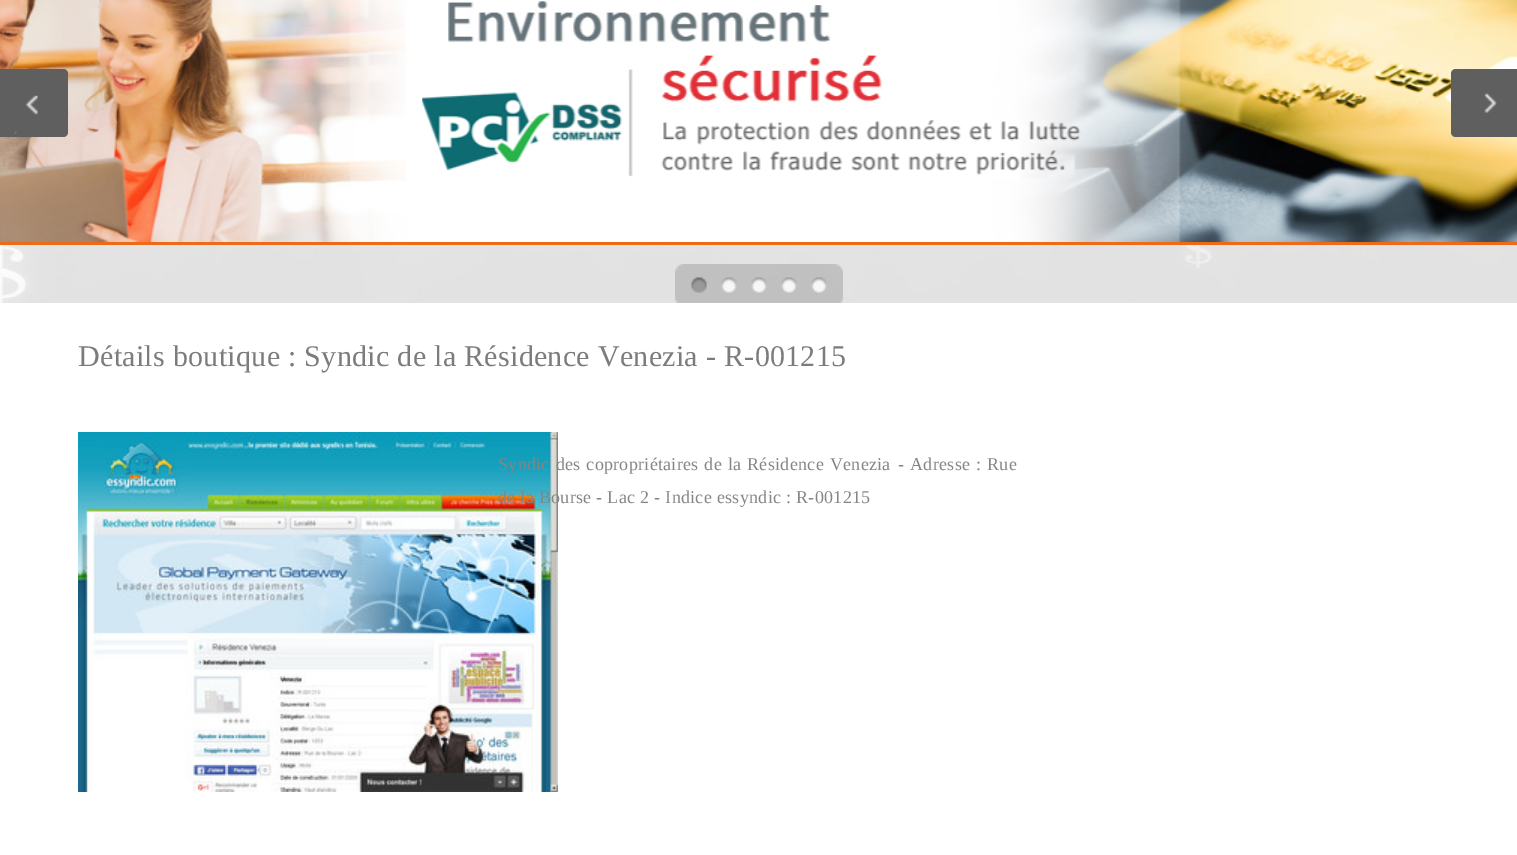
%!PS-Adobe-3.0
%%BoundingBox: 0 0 1517 855
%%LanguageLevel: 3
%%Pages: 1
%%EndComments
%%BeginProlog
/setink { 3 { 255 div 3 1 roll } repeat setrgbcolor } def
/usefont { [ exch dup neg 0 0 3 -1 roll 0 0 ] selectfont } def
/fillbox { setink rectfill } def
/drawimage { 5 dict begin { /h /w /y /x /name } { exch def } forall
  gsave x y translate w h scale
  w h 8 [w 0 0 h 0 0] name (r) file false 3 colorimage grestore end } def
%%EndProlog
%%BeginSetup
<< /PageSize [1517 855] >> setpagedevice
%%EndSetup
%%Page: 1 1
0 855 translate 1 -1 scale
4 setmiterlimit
0 0 1517 855 255 255 255 fillbox
0 242 1517 3 237 106 24 fillbox
(assets/img1.rgb) 0 0 1517 242 drawimage
96 95 95 setink
0 69 moveto 63 69 lineto 66 69 68 71 68 74 curveto 68 132 lineto 68 135 66 137 63 137 curveto 0 137 lineto closepath fill
(assets/img2.rgb) 14 95 24 39 drawimage
1456 69 moveto 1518 69 lineto 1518 137 lineto 1456 137 lineto 1453 137 1451 135 1451 132 curveto 1451 74 lineto 1451 71 1453 69 1456 69 curveto closepath fill
(assets/img3.rgb) 1484 93 13 20 drawimage
(assets/img11.rgb) 0 245 1517 58 drawimage
(assets/img4.rgb) 675 264 9 39 drawimage
(assets/img5.rgb) 684 264 30 39 drawimage
(assets/img6.rgb) 714 264 30 39 drawimage
(assets/img7.rgb) 744 264 30 39 drawimage
(assets/img8.rgb) 774 264 30 39 drawimage
(assets/img9.rgb) 804 264 30 39 drawimage
(assets/img10.rgb) 834 264 9 39 drawimage
/LiberationSerif-Regular 30 usefont
124 124 124 setink
78 366 moveto 0.3 0 (Détails boutique : Syndic de la Résidence Venezia - R-001215) ashow
(assets/img12.rgb) 78 432 480 360 drawimage
/LiberationSerif-Regular 18 usefont
133 133 133 setink
498 470 moveto 1 0 32 0.3 0 (Syndic des copropriétaires de la Résidence Venezia) awidthshow
898 470 moveto 1 0 32 0.3 0 (- Adresse : Rue) awidthshow
498 503 moveto 0.3 0 (de la Bourse - Lac 2 - Indice essyndic : R-001215) ashow
showpage
%%EOF
